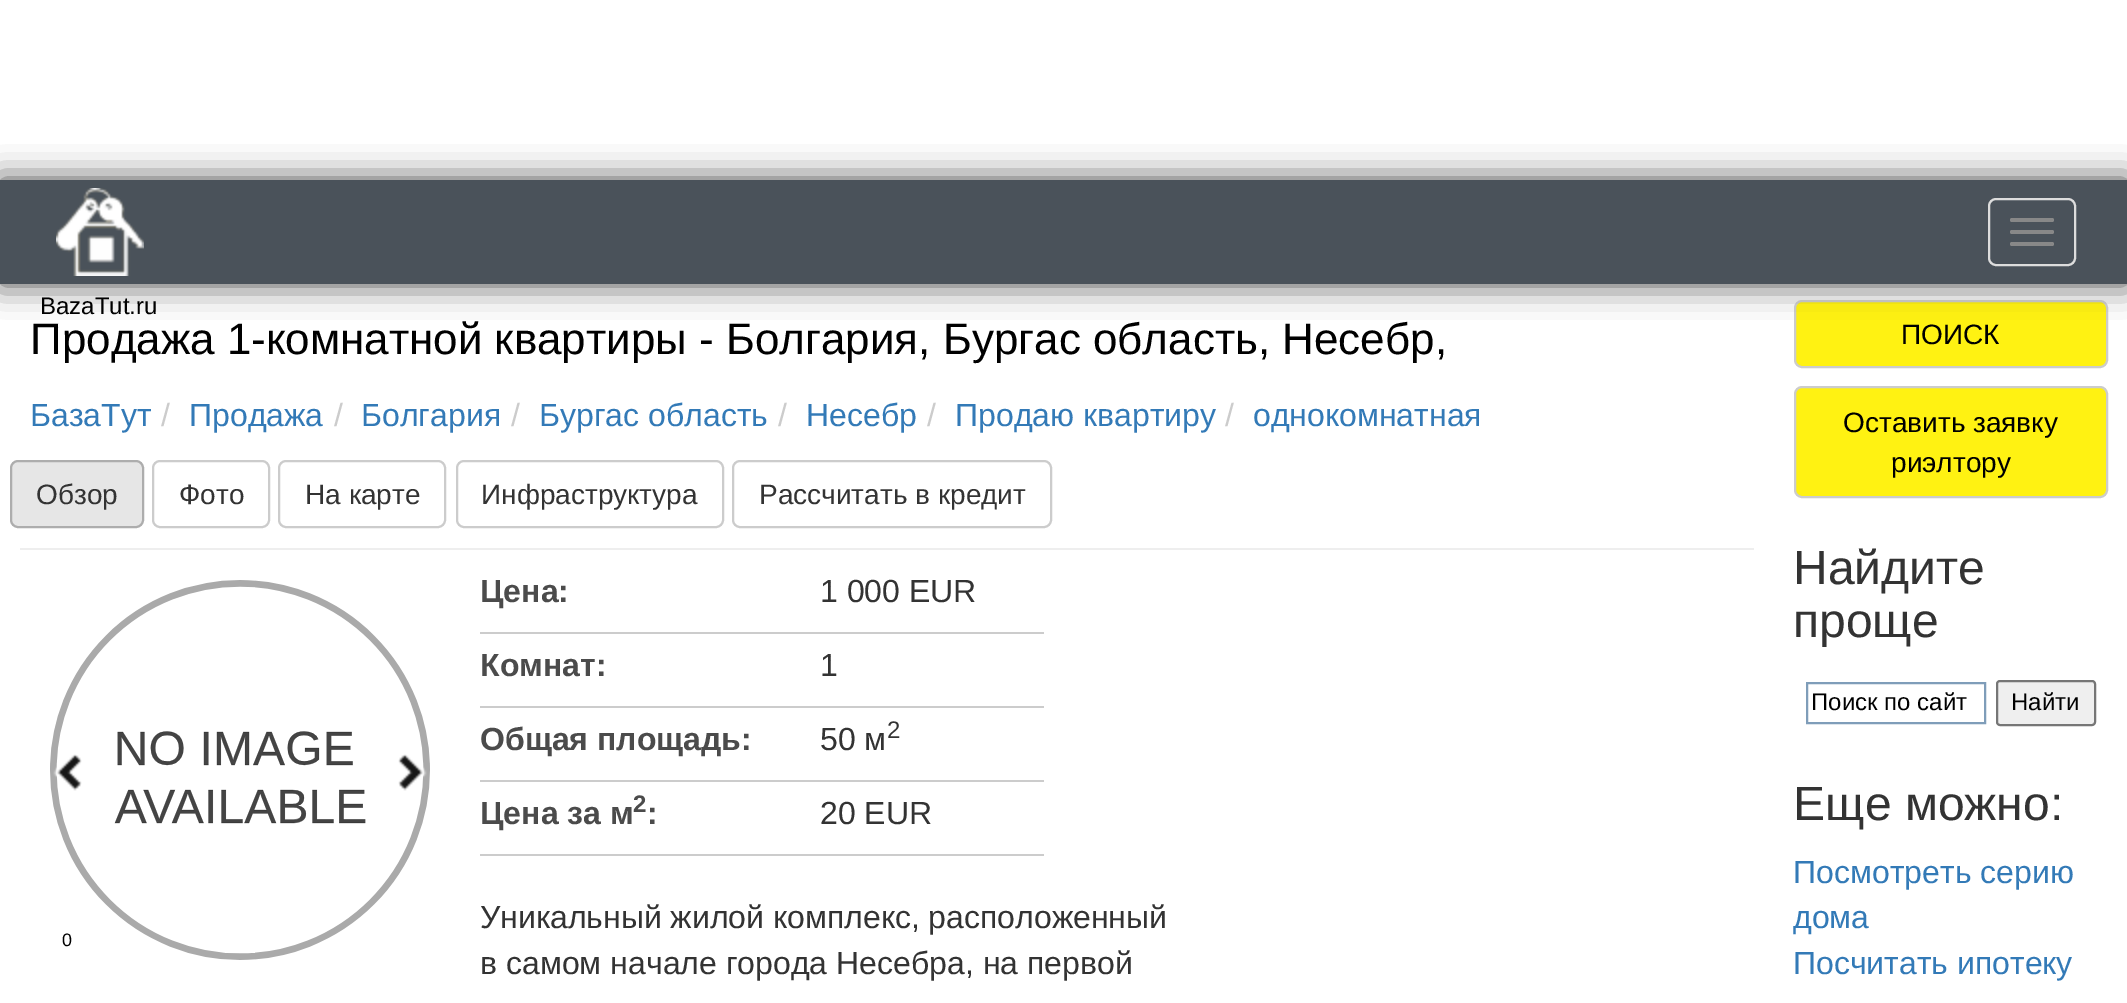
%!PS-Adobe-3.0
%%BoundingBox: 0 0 2127 1003
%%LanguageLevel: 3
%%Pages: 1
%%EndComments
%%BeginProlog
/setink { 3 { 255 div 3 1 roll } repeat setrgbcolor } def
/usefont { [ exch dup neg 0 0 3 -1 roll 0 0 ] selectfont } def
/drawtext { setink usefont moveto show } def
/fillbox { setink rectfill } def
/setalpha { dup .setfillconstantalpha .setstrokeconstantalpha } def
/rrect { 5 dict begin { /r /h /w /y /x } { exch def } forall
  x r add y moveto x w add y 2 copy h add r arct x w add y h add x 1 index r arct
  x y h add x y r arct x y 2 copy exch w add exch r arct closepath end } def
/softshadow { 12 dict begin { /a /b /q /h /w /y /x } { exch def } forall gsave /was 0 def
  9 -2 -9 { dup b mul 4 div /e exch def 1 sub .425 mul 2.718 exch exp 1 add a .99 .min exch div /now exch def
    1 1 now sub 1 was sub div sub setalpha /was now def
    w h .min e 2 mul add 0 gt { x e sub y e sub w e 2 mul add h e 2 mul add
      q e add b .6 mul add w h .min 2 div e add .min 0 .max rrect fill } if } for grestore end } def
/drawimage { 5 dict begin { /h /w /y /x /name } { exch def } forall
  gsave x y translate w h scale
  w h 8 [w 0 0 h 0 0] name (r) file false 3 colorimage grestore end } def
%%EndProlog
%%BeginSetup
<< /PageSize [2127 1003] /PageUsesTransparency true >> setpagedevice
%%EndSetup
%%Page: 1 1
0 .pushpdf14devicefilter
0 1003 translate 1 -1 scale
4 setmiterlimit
0 0 2127 1003 255 255 255 fillbox
0 0 0 setink
0 180 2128 104 0 16 0.4 softshadow
255 242 18 setink
1795 301 312 66 7 rrect gsave fill grestore
204 204 204 setink
2 setlinewidth
stroke
0 0 0 setink
0 180 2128 104 0 16 0.4 softshadow
0 180 2127 104 74 82 90 fillbox
221 221 221 setink
1989 199 86 66 7 rrect stroke
136 136 136 setink
2010 218 44 4 2 rrect fill
2010 230 44 4 2 rrect fill
2010 242 44 4 2 rrect fill
(assets/img1.rgb) 56 188 88 88 drawimage
(BazaTut.ru) 40 314 /LiberationSans-Regular 24 0 0 0 drawtext
(Продажа 1-комнатной квартиры - Болгария, Бургас область, Несебр,) 30 354 /LiberationSans-Regular 44 0 0 0 drawtext
(БазаТут) 30 426 /LiberationSans-Regular 32 51 122 183 drawtext
(/) 161 426 /LiberationSans-Regular 32 204 204 204 drawtext
(Продажа) 189 426 /LiberationSans-Regular 32 51 122 183 drawtext
(/) 334 426 /LiberationSans-Regular 32 204 204 204 drawtext
(Болгария) 361 426 /LiberationSans-Regular 32 51 122 183 drawtext
(/) 511 426 /LiberationSans-Regular 32 204 204 204 drawtext
(Бургас область) 539 426 /LiberationSans-Regular 32 51 122 183 drawtext
(/) 778 426 /LiberationSans-Regular 32 204 204 204 drawtext
(Несебр) 806 426 /LiberationSans-Regular 32 51 122 183 drawtext
(/) 927 426 /LiberationSans-Regular 32 204 204 204 drawtext
(Продаю квартиру) 955 426 /LiberationSans-Regular 32 51 122 183 drawtext
(/) 1225 426 /LiberationSans-Regular 32 204 204 204 drawtext
(однокомнатная) 1253 426 /LiberationSans-Regular 32 51 122 183 drawtext
230 230 230 setink
11 461 132 66 7 rrect gsave fill grestore
173 173 173 setink
stroke
(Обзор) 36 504 /LiberationSans-Regular 28 51 51 51 drawtext
204 204 204 setink
153 461 116 66 7 rrect stroke
(Фото) 179 504 /LiberationSans-Regular 28 51 51 51 drawtext
204 204 204 setink
279 461 166 66 7 rrect stroke
(На карте) 305 504 /LiberationSans-Regular 28 51 51 51 drawtext
204 204 204 setink
457 461 266 66 7 rrect stroke
(Инфраструктура) 481 504 /LiberationSans-Regular 28 51 51 51 drawtext
204 204 204 setink
733 461 318 66 7 rrect stroke
(Рассчитать в кредит) 759 504 /LiberationSans-Regular 28 51 51 51 drawtext
20 548 1734 2 238 238 238 fillbox
480 632 564 2 204 204 204 fillbox
(Цена:) 480 602 /LiberationSans-Bold 32 75 75 75 drawtext
(1 000 EUR) 820 602 /LiberationSans-Regular 32 51 51 51 drawtext
480 706 564 2 204 204 204 fillbox
(Комнат:) 480 676 /LiberationSans-Bold 32 75 75 75 drawtext
(1) 820 676 /LiberationSans-Regular 32 51 51 51 drawtext
480 780 564 2 204 204 204 fillbox
(Общая площадь:) 480 750 /LiberationSans-Bold 32 75 75 75 drawtext
(50 м) 820 750 /LiberationSans-Regular 32 51 51 51 drawtext
(2) 887 738 /LiberationSans-Regular 24 51 51 51 drawtext
480 854 564 2 204 204 204 fillbox
(Цена за м) 480 824 /LiberationSans-Bold 32 75 75 75 drawtext
(2) 633 812 /LiberationSans-Bold 24 75 75 75 drawtext
(:) 647 824 /LiberationSans-Bold 32 75 75 75 drawtext
(20 EUR) 820 824 /LiberationSans-Regular 32 51 51 51 drawtext
(assets/img2.rgb) 50 580 380 380 drawimage
(assets/img3.rgb) 53 754 29 37 drawimage
(assets/img4.rgb) 398 754 29 37 drawimage
(0) 62 946 /LiberationSans-Regular 18 0 0 0 drawtext
(Уникальный жилой комплекс, расположенный) 480 928 /LiberationSans-Regular 32 51 51 51 drawtext
(в самом начале города Несебра, на первой) 480 974 /LiberationSans-Regular 32 51 51 51 drawtext
(ПОИСК) 1901 344 /LiberationSans-Regular 28 0 0 0 drawtext
255 242 18 setink
1795 387 312 110 7 rrect gsave fill grestore
204 204 204 setink
stroke
(Оставить заявку) 1843 432 /LiberationSans-Regular 28 0 0 0 drawtext
(риэлтору) 1891 472 /LiberationSans-Regular 28 0 0 0 drawtext
(Найдите) 1793 584 /LiberationSans-Regular 48 51 51 51 drawtext
(проще) 1793 637 /LiberationSans-Regular 48 51 51 51 drawtext
127 157 185 setink
1807 683 178 40 rectstroke
(Поиск по сайт) 1811 710 /LiberationSans-Regular 24 0 0 0 drawtext
239 239 239 setink
1997 681 98 44 3 rrect gsave fill grestore
118 118 118 setink
stroke
(Найти) 2011 710 /LiberationSans-Regular 24 0 0 0 drawtext
(Еще можно:) 1793 820 /LiberationSans-Regular 48 51 51 51 drawtext
(Посмотреть серию) 1793 883 /LiberationSans-Regular 32 51 122 183 drawtext
(дома) 1793 928 /LiberationSans-Regular 32 51 122 183 drawtext
(Посчитать ипотеку) 1793 974 /LiberationSans-Regular 32 51 122 183 drawtext
.poppdf14devicefilter showpage
%%EOF
